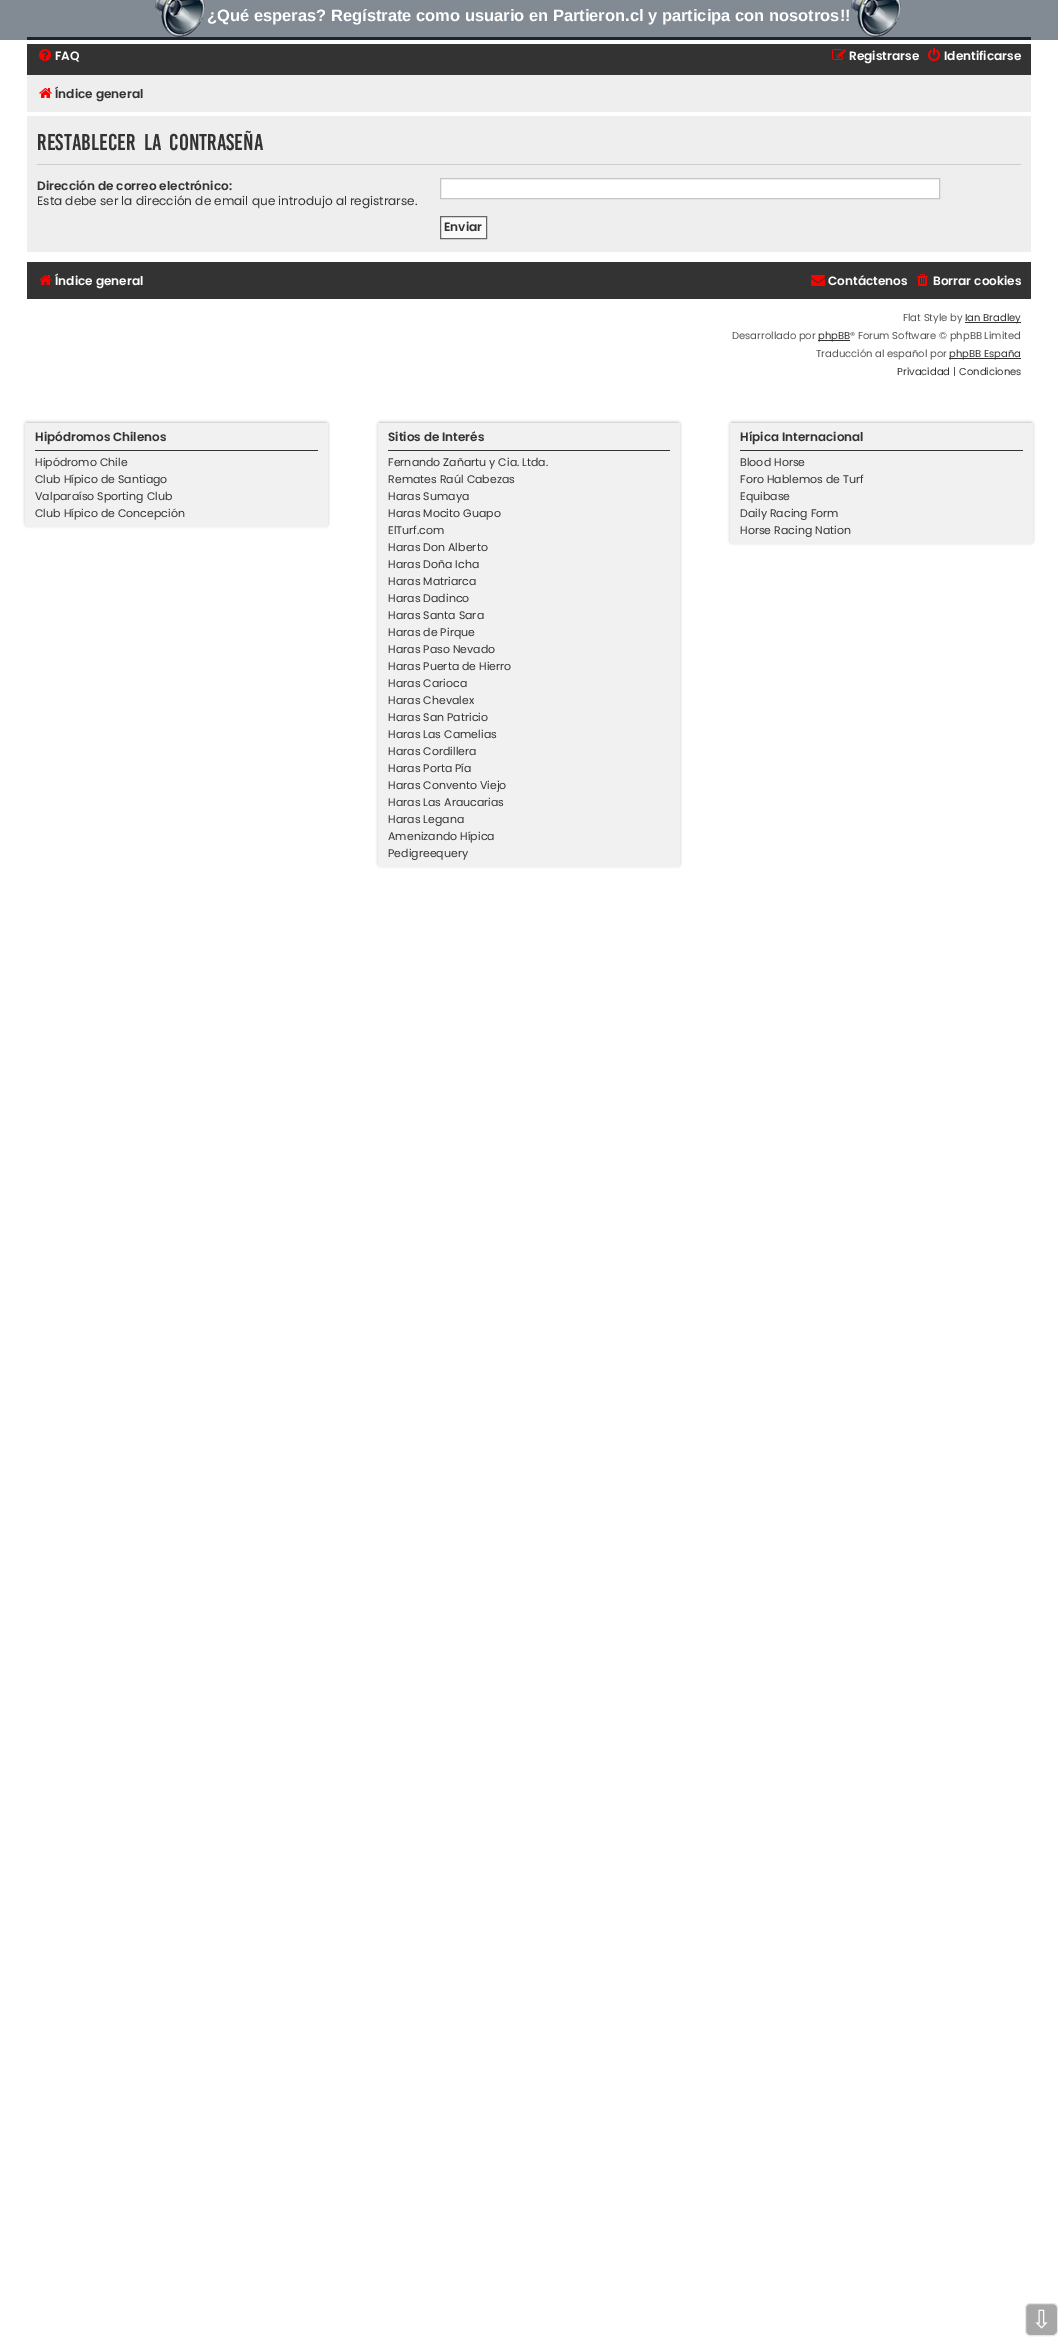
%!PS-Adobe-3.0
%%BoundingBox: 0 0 1058 2346
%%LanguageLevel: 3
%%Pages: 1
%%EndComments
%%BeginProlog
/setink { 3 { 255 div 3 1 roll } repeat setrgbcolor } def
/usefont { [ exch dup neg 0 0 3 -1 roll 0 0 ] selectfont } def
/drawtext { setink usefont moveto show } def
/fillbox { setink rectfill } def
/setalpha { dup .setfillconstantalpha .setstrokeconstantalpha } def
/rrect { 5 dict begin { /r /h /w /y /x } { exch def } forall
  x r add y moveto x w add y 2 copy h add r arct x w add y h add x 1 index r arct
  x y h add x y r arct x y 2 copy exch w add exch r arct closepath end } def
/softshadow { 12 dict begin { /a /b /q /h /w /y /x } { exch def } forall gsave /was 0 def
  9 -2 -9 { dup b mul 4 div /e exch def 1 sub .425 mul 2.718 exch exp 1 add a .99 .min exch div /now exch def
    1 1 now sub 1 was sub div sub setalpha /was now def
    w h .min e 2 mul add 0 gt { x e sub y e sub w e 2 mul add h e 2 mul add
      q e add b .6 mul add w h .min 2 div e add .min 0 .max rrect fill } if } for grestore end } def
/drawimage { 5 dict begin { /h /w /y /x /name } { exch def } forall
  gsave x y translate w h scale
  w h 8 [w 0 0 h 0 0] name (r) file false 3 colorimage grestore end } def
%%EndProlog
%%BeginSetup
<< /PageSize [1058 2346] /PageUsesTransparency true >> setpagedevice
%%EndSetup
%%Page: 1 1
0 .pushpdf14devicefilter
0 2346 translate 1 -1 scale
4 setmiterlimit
0 0 1058 2346 255 255 255 fillbox
0 0 1058 40 130 138 148 fillbox
(assets/img1.rgb) 155 0 50 37 drawimage
(¿Qué esperas? Regístrate como usuario en Partieron.cl y participa con nosotros!!) 207 21 /LiberationSans-Bold 16.5 255 255 255 drawtext
(assets/img1.rgb) 851 0 50 37 drawimage
27 44 1004 31 51 51 51 fillbox
27 37 1004 3 28 36 46 fillbox
(assets/img2.rgb) 39 49 12 12 drawimage
(FAQ) 55 60 /Poppins-SemiBold 12.1 255 255 255 drawtext
(assets/img3.rgb) 832 49 14 11 drawimage
(Registrarse) 849 60 /Poppins-SemiBold 12.1 255 255 255 drawtext
(assets/img4.rgb) 928 48 12 13 drawimage
(Identificarse) 944 60 /Poppins-SemiBold 12.1 255 255 255 drawtext
27 75 1004 37 238 238 238 fillbox
(assets/img5.rgb) 39 88 13 10 drawimage
(Índice general) 55 98 /Poppins-SemiBold 12.1 51 51 51 drawtext
27 116 1004 136 238 238 238 fillbox
37 164 984 1 204 204 204 fillbox
/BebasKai-Regular 17.6 usefont
51 51 51 setink
37 150 moveto 4 0 32 (Restablecer la contraseña) widthshow
(Dirección de correo electrónico:) 37 190 /Poppins-SemiBold 12.1 51 51 51 drawtext
(Esta debe ser la dirección de email que introdujo al registrarse.) 37 205 /Poppins-Regular 12.1 51 51 51 drawtext
255 255 255 setink
440.5 178.5 moveto 939.5 178.5 lineto 939.5 198.5 lineto 440.5 198.5 lineto closepath gsave fill grestore
199 195 191 setink
stroke
250 250 250 setink
440.5 216.5 moveto 486.5 216.5 lineto 486.5 238.5 lineto 440.5 238.5 lineto closepath gsave fill grestore
102 102 102 setink
stroke
(Enviar) 444 231 /Poppins-SemiBold 12.1 51 51 51 drawtext
27 262 1004 37 51 51 51 fillbox
(assets/img6.rgb) 39 275 13 10 drawimage
(Índice general) 55 285 /Poppins-SemiBold 12.1 255 255 255 drawtext
(assets/img7.rgb) 811 275 14 11 drawimage
(Contáctenos) 828 285 /Poppins-SemiBold 12.1 255 255 255 drawtext
(assets/img8.rgb) 917 274 11 12 drawimage
(Borrar cookies) 933 285 /Poppins-SemiBold 12.1 255 255 255 drawtext
(Flat Style by) 903 321 /Poppins-Regular 10 85 85 85 drawtext
965 322 56 1 51 51 51 fillbox
(Ian Bradley) 965 321 /Poppins-Regular 10 51 51 51 drawtext
(Desarrollado por) 732 339 /Poppins-Regular 10 85 85 85 drawtext
818 340 32 1 51 51 51 fillbox
(phpBB) 818 339 /Poppins-Regular 10 51 51 51 drawtext
(® Forum Software © phpBB Limited) 850 339 /Poppins-Regular 10 85 85 85 drawtext
(Traducción al español por) 816 357 /Poppins-Regular 10 85 85 85 drawtext
949 358 72 1 51 51 51 fillbox
(phpBB España) 949 357 /Poppins-Regular 10 51 51 51 drawtext
(Privacidad) 897 375 /Poppins-Regular 10 51 51 51 drawtext
(|) 953 375 /Poppins-Regular 10 85 85 85 drawtext
(Condiciones) 959 375 /Poppins-Regular 10 51 51 51 drawtext
2 2 2 setink
27 424 299 100 0 2 0.7 softshadow
25 423 303 104 241 241 241 fillbox
35 450 283 1 51 51 51 fillbox
(Hipódromos Chilenos) 35 441 /Poppins-SemiBold 12 51 51 51 drawtext
(Hipódromo Chile) 35 466 /Poppins-Regular 11 51 51 51 drawtext
(Club Hípico de Santiago) 35 483 /Poppins-Regular 11 51 51 51 drawtext
(Valparaíso Sporting Club) 35 500 /Poppins-Regular 11 51 51 51 drawtext
(Club Hípico de Concepción) 35 517 /Poppins-Regular 11 51 51 51 drawtext
2 2 2 setink
380 424 298 440 0 2 0.7 softshadow
378 423 302 444 241 241 241 fillbox
388 450 282 1 51 51 51 fillbox
(Sitios de Interés) 388 441 /Poppins-SemiBold 12 51 51 51 drawtext
(Fernando Zañartu y Cia. Ltda.) 388 466 /Poppins-Regular 11 51 51 51 drawtext
(Remates Raúl Cabezas) 388 483 /Poppins-Regular 11 51 51 51 drawtext
(Haras Sumaya) 388 500 /Poppins-Regular 11 51 51 51 drawtext
(Haras Mocito Guapo) 388 517 /Poppins-Regular 11 51 51 51 drawtext
(ElTurf.com) 388 534 /Poppins-Regular 11 51 51 51 drawtext
(Haras Don Alberto) 388 551 /Poppins-Regular 11 51 51 51 drawtext
(Haras Doña Icha) 388 568 /Poppins-Regular 11 51 51 51 drawtext
(Haras Matriarca) 388 585 /Poppins-Regular 11 51 51 51 drawtext
(Haras Dadinco) 388 602 /Poppins-Regular 11 51 51 51 drawtext
(Haras Santa Sara) 388 619 /Poppins-Regular 11 51 51 51 drawtext
(Haras de Pirque) 388 636 /Poppins-Regular 11 51 51 51 drawtext
(Haras Paso Nevado) 388 653 /Poppins-Regular 11 51 51 51 drawtext
(Haras Puerta de Hierro) 388 670 /Poppins-Regular 11 51 51 51 drawtext
(Haras Carioca) 388 687 /Poppins-Regular 11 51 51 51 drawtext
(Haras Chevalex) 388 704 /Poppins-Regular 11 51 51 51 drawtext
(Haras San Patricio) 388 721 /Poppins-Regular 11 51 51 51 drawtext
(Haras Las Camelias) 388 738 /Poppins-Regular 11 51 51 51 drawtext
(Haras Cordillera) 388 755 /Poppins-Regular 11 51 51 51 drawtext
(Haras Porta Pía) 388 772 /Poppins-Regular 11 51 51 51 drawtext
(Haras Convento Viejo) 388 789 /Poppins-Regular 11 51 51 51 drawtext
(Haras Las Araucarias) 388 806 /Poppins-Regular 11 51 51 51 drawtext
(Haras Legana) 388 823 /Poppins-Regular 11 51 51 51 drawtext
(Amenizando Hípica) 388 840 /Poppins-Regular 11 51 51 51 drawtext
(Pedigreequery) 388 857 /Poppins-Regular 11 51 51 51 drawtext
2 2 2 setink
732 424 299 117 0 2 0.7 softshadow
730 423 303 121 241 241 241 fillbox
740 450 283 1 51 51 51 fillbox
(Hípica Internacional) 740 441 /Poppins-SemiBold 12 51 51 51 drawtext
(Blood Horse) 740 466 /Poppins-Regular 11 51 51 51 drawtext
(Foro Hablemos de Turf) 740 483 /Poppins-Regular 11 51 51 51 drawtext
(Equibase) 740 500 /Poppins-Regular 11 51 51 51 drawtext
(Daily Racing Form) 740 517 /Poppins-Regular 11 51 51 51 drawtext
(Horse Racing Nation) 740 534 /Poppins-Regular 11 51 51 51 drawtext
167 167 167 setink
1025.5 2303.5 32 32 4.5 rrect gsave fill grestore
230 230 230 setink
stroke
(⇩) 1031 2328 /DejaVuSans-Regular 25 255 255 255 drawtext
.poppdf14devicefilter showpage
%%EOF
